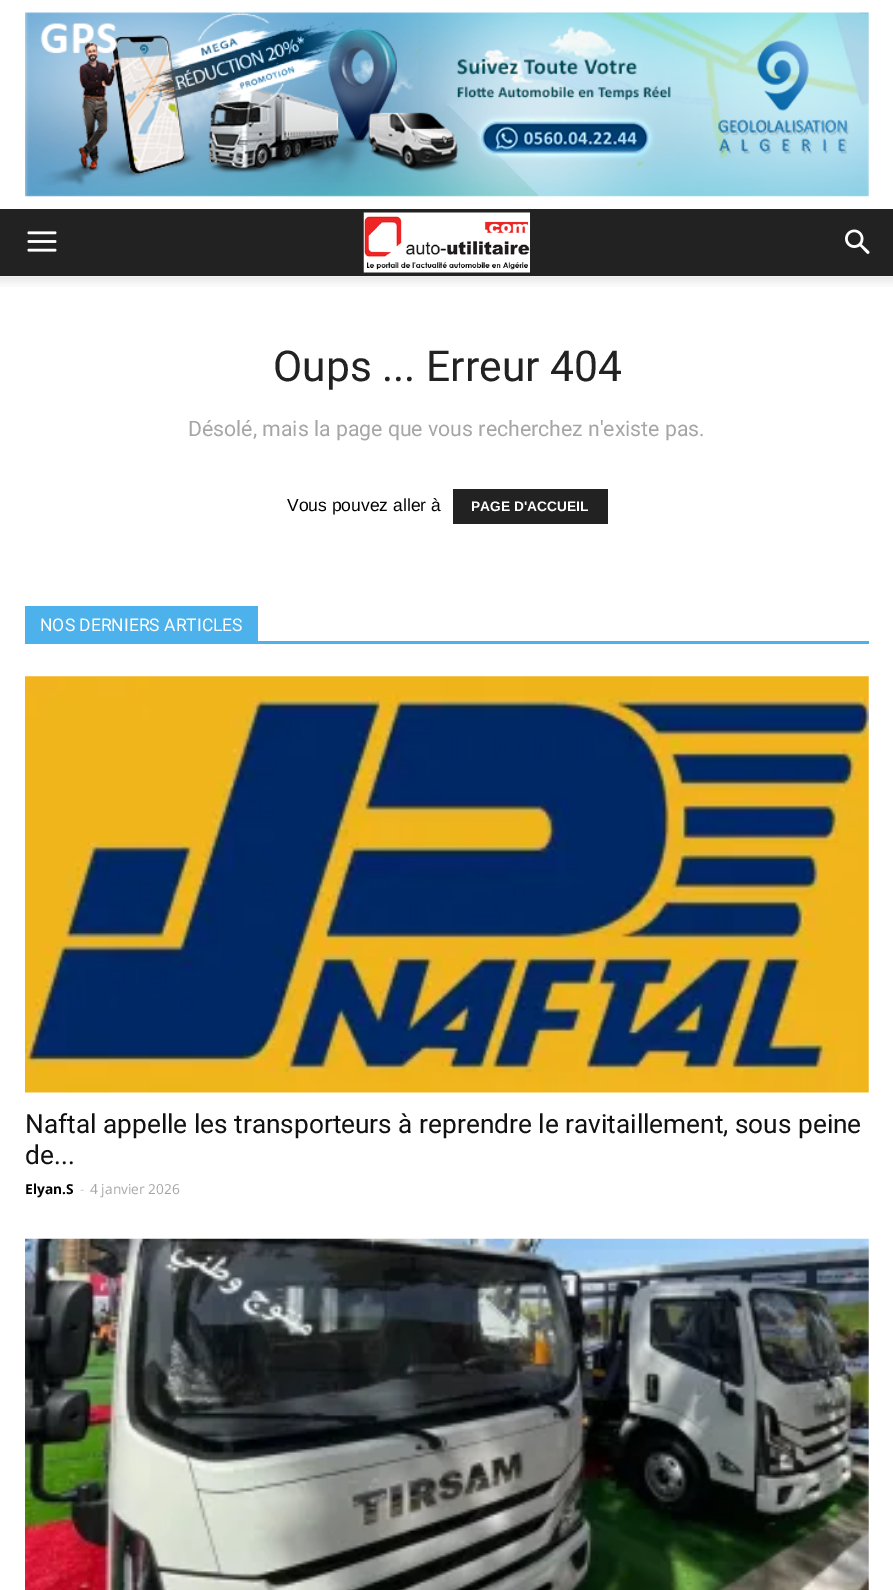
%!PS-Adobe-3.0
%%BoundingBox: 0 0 893 1590
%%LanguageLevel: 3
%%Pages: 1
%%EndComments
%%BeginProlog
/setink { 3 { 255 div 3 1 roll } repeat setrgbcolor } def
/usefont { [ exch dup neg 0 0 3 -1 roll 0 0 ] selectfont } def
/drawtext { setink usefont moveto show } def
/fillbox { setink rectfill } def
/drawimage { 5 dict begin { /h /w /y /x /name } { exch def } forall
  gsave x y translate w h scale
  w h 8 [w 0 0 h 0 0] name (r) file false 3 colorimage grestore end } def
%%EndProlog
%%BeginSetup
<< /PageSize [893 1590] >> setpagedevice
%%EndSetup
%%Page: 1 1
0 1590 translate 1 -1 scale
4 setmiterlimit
0 0 893 1590 255 255 255 fillbox
(assets/img1.rgb) 25 12 844 185 drawimage
0 209 893 67 34 34 34 fillbox
(assets/img2.rgb) 27 231 30 21 drawimage
(assets/img3.rgb) 363 212 167 61 drawimage
(assets/img4.rgb) 845 229 25 25 drawimage
(assets/img5.rgb) 0 276 893 11 drawimage
(Oups ... Erreur 404) 273 381 /Roboto-Regular 42.5 34 34 34 drawtext
(Désolé, mais la page que vous recherchez n'existe pas.) 188 436 /Roboto-Regular 21.25 166 166 166 drawtext
(Vous pouvez aller à) 287 511 /LiberationSans-Regular 17.5 0 0 0 drawtext
453 489 155 35 34 34 34 fillbox
(PAGE D'ACCUEIL) 471 511 /LiberationSans-Bold 13.75 255 255 255 drawtext
25 641 844 3 77 178 236 fillbox
25 606 233 35 77 178 236 fillbox
(NOS DERNIERS ARTICLES) 40 631 /Roboto-Regular 17.5 255 255 255 drawtext
(assets/img6.rgb) 25 676 844 417 drawimage
(Naftal appelle les transporteurs à reprendre le ravitaillement, sous peine) 25 1133 /Roboto-Regular 26.25 17 17 17 drawtext
(de...) 25 1164 /Roboto-Regular 26.25 17 17 17 drawtext
(Elyan.S) 25 1194 /OpenSans-Bold 13.75 0 0 0 drawtext
(-) 80 1194 /OpenSans-Regular 13.75 204 204 204 drawtext
(4 janvier 2026) 90 1194 /OpenSans-Regular 13.75 166 166 166 drawtext
(assets/img7.rgb) 25 1238 844 352 drawimage
showpage
%%EOF
